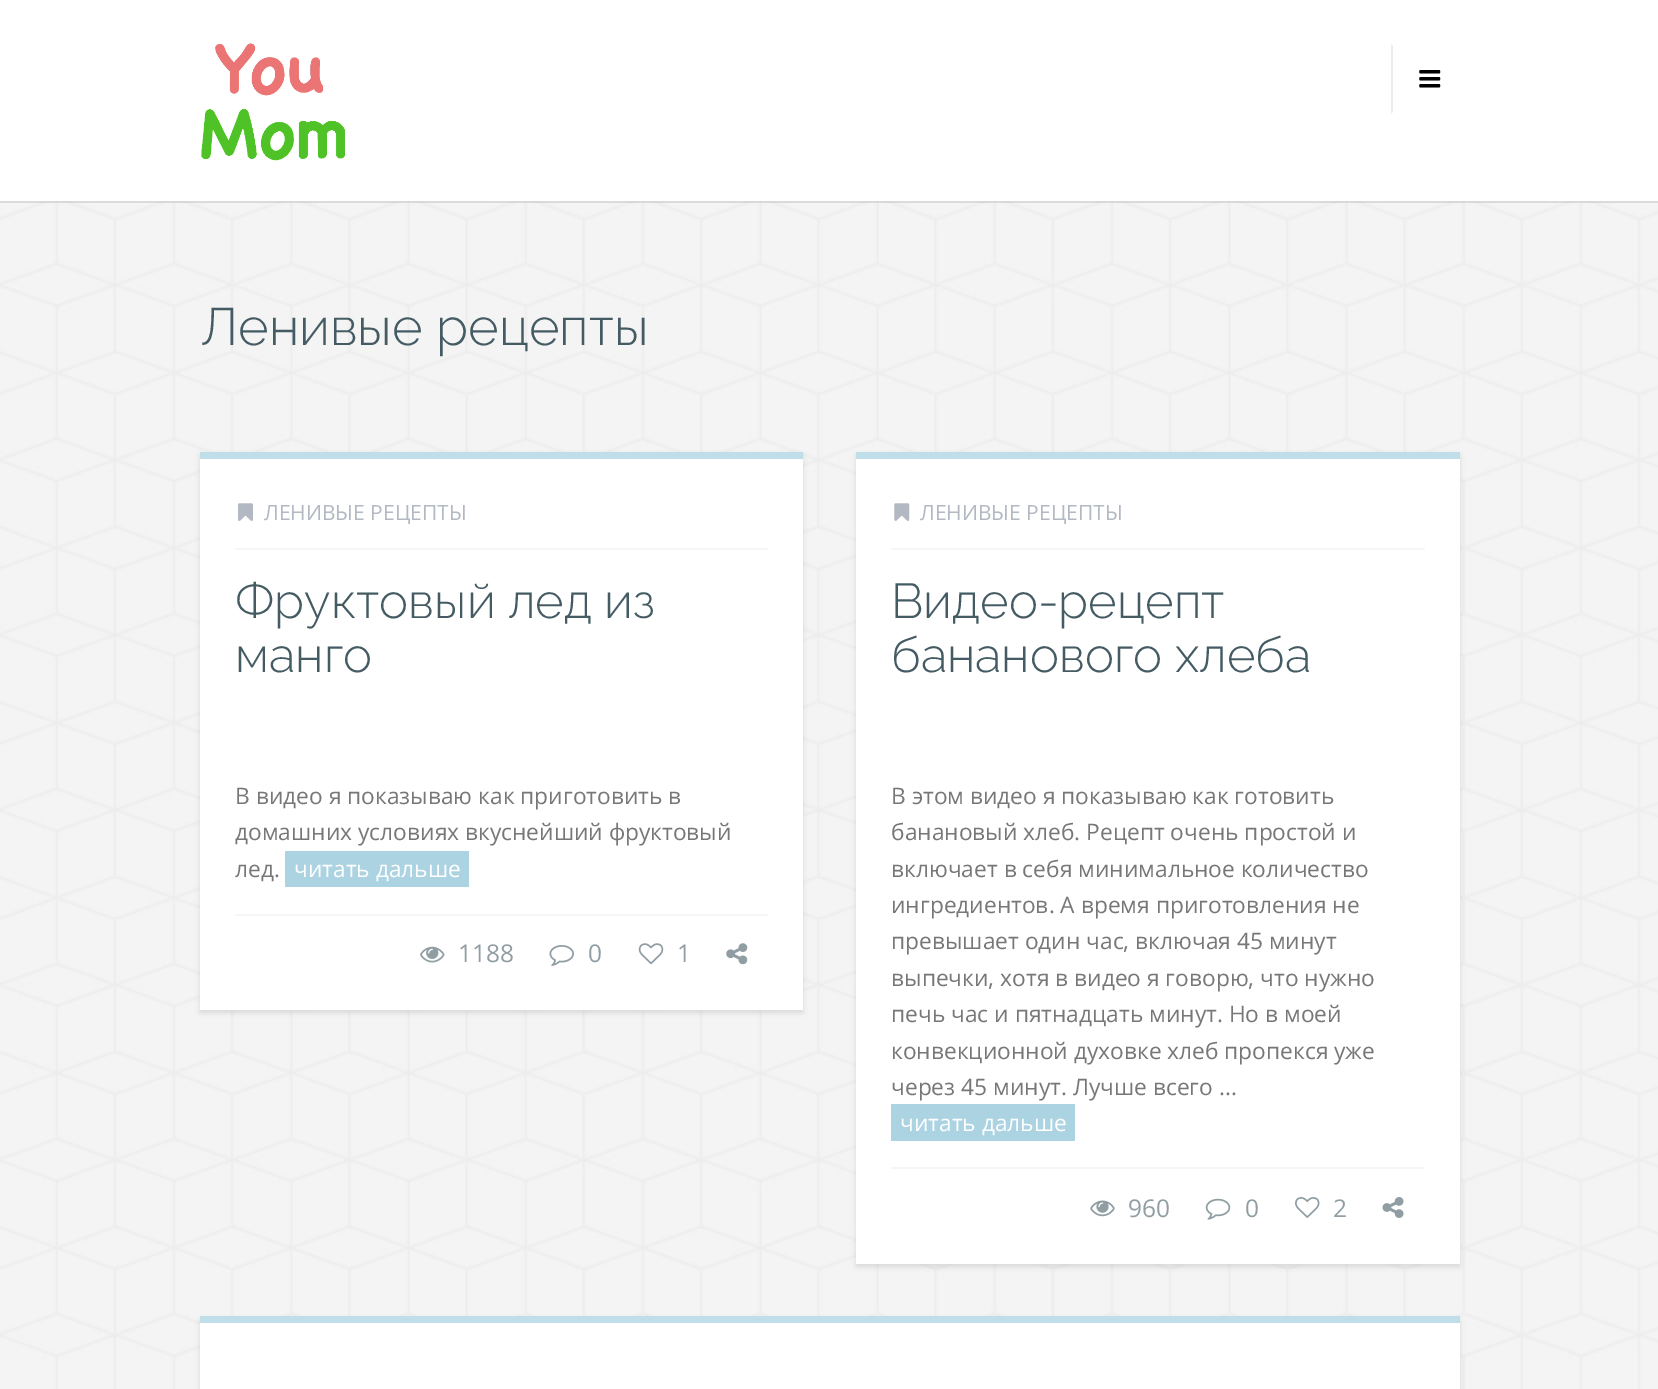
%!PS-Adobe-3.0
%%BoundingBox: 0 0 1658 1389
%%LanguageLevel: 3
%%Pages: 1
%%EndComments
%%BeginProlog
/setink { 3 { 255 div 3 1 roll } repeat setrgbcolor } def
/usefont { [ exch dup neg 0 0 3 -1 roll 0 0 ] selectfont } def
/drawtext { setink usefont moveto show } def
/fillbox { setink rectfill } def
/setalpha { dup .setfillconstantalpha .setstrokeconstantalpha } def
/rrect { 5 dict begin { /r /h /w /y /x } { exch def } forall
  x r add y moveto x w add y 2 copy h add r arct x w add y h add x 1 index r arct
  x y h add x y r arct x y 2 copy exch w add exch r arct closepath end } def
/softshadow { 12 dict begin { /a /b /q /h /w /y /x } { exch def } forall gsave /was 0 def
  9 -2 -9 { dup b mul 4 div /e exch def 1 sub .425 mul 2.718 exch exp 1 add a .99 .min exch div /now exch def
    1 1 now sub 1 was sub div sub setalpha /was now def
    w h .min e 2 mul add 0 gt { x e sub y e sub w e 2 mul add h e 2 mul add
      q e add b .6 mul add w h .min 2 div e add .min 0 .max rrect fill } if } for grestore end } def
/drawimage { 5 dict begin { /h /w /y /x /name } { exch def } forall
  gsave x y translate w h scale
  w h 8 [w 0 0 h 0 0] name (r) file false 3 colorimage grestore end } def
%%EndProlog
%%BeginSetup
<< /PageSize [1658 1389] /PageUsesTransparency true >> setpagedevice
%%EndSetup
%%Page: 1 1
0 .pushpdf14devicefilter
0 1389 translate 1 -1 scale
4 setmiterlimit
0 0 1658 1389 255 255 255 fillbox
(assets/img1.rgb) 0 201 1658 1188 drawimage
0.1 setalpha
0 201 1658 2 0 0 0 fillbox
1 setalpha
(assets/img2.rgb) 201 43 144 118 drawimage
236 236 236 setink
1391 114 moveto 1391 44 lineto 1393 46 lineto 1393 112 lineto closepath fill
(assets/img3.rgb) 1419 70 22 18 drawimage
(Ленивые рецепты) 200 345 /Raleway-Light 52.5 68 91 99 drawtext
0 0 0 setink
200 455 603 558 0 2.5 0.1 softshadow
200 459 603 551 255 255 255 fillbox
200 452 603 7 191 222 234 fillbox
235 548 533 2 246 246 246 fillbox
(assets/img4.rgb) 238 503 15 18 drawimage
(ЛЕНИВЫЕ РЕЦЕПТЫ) 264 520 /OpenSans-Regular 21 179 185 195 drawtext
(Фруктовый лед из) 235 618 /Raleway-Light 49 68 91 99 drawtext
(манго) 235 672 /Raleway-Light 49 68 91 99 drawtext
(В видео я показываю как приготовить в) 235 804 /OpenSans-Regular 22.75 119 119 119 drawtext
(домашних условиях вкуснейший фруктовый) 235 840 /OpenSans-Regular 22.75 119 119 119 drawtext
(лед.) 235 877 /OpenSans-Regular 22.75 119 119 119 drawtext
285 851 184 36 172 211 226 fillbox
(читать дальше) 294 877 /OpenSans-Regular 22.75 255 255 255 drawtext
235 914 533 2 246 246 246 fillbox
(assets/img5.rgb) 420 946 25 17 drawimage
(1188) 458 962 /OpenSans-Regular 24.5 144 158 163 drawtext
(assets/img6.rgb) 549 945 25 21 drawimage
(0) 588 962 /OpenSans-Regular 24.5 144 158 163 drawtext
(assets/img7.rgb) 638 943 26 22 drawimage
(1) 677 962 /OpenSans-Regular 24.5 144 158 163 drawtext
(assets/img8.rgb) 726 943 22 22 drawimage
0 0 0 setink
856 455 604 812 0 2.5 0.1 softshadow
856 459 604 805 255 255 255 fillbox
856 452 604 7 191 222 234 fillbox
891 548 534 2 246 246 246 fillbox
(assets/img9.rgb) 894 503 16 18 drawimage
(ЛЕНИВЫЕ РЕЦЕПТЫ) 920 520 /OpenSans-Regular 21 179 185 195 drawtext
(Видео-рецепт) 891 618 /Raleway-Light 49 68 91 99 drawtext
(бананового хлеба) 891 672 /Raleway-Light 49 68 91 99 drawtext
(В этом видео я показываю как готовить) 891 804 /OpenSans-Regular 22.75 119 119 119 drawtext
(банановый хлеб. Рецепт очень простой и) 891 840 /OpenSans-Regular 22.75 119 119 119 drawtext
(включает в себя минимальное количество) 891 877 /OpenSans-Regular 22.75 119 119 119 drawtext
(ингредиентов. А время приготовления не) 891 913 /OpenSans-Regular 22.75 119 119 119 drawtext
(превышает один час, включая 45 минут) 891 949 /OpenSans-Regular 22.75 119 119 119 drawtext
(выпечки, хотя в видео я говорю, что нужно) 891 986 /OpenSans-Regular 22.75 119 119 119 drawtext
(печь час и пятнадцать минут. Но в моей) 891 1022 /OpenSans-Regular 22.75 119 119 119 drawtext
(конвекционной духовке хлеб пропекся уже) 891 1059 /OpenSans-Regular 22.75 119 119 119 drawtext
(через 45 минут. Лучше всего ...) 891 1095 /OpenSans-Regular 22.75 119 119 119 drawtext
891 1104 184 37 172 211 226 fillbox
(читать дальше) 900 1131 /OpenSans-Regular 22.75 255 255 255 drawtext
891 1167 534 2 246 246 246 fillbox
(assets/img10.rgb) 1090 1200 25 17 drawimage
(960) 1128 1217 /OpenSans-Regular 24.5 144 158 163 drawtext
(assets/img11.rgb) 1205 1198 26 22 drawimage
(0) 1245 1217 /OpenSans-Regular 24.5 144 158 163 drawtext
(assets/img12.rgb) 1295 1197 25 21 drawimage
(2) 1333 1217 /OpenSans-Regular 24.5 144 158 163 drawtext
(assets/img13.rgb) 1382 1197 22 21 drawimage
0 0 0 setink
200 1320 1260 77 0 2.5 0.1 softshadow
200 1323 1260 66 255 255 255 fillbox
200 1316 1260 7 191 222 234 fillbox
.poppdf14devicefilter showpage
%%EOF
